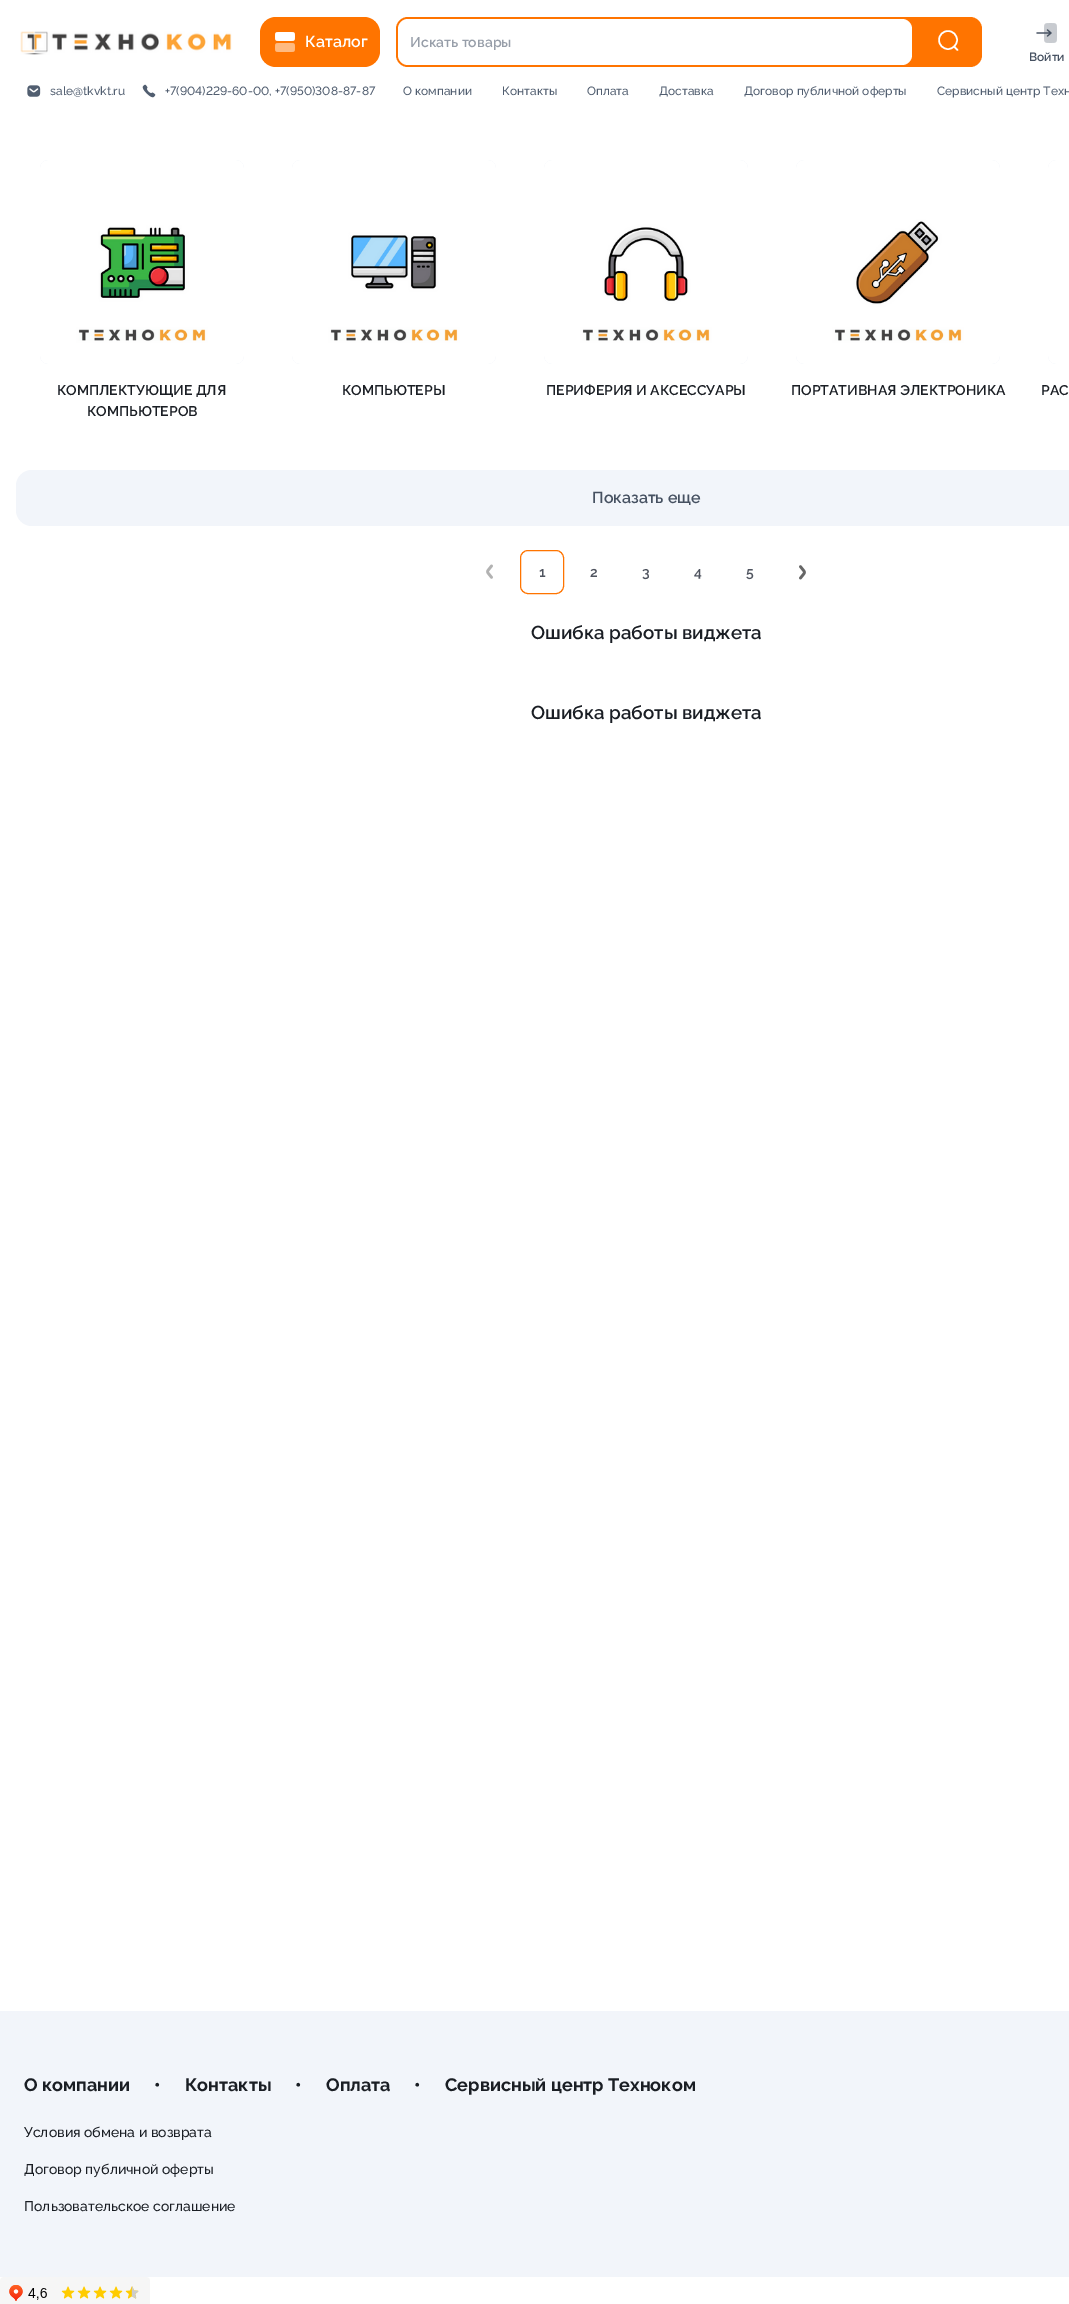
%!PS-Adobe-3.0
%%BoundingBox: 0 0 1069 2304
%%LanguageLevel: 3
%%Pages: 1
%%EndComments
%%BeginProlog
/setink { 3 { 255 div 3 1 roll } repeat setrgbcolor } def
/usefont { [ exch dup neg 0 0 3 -1 roll 0 0 ] selectfont } def
/drawtext { setink usefont moveto show } def
/fillbox { setink rectfill } def
/disc { newpath 0 360 arc closepath } def
/rrect { 5 dict begin { /r /h /w /y /x } { exch def } forall
  x r add y moveto x w add y 2 copy h add r arct x w add y h add x 1 index r arct
  x y h add x y r arct x y 2 copy exch w add exch r arct closepath end } def
/drawimage { 5 dict begin { /h /w /y /x /name } { exch def } forall
  gsave x y translate w h scale
  w h 8 [w 0 0 h 0 0] name (r) file false 3 colorimage grestore end } def
%%EndProlog
%%BeginSetup
<< /PageSize [1069 2304] >> setpagedevice
%%EndSetup
%%Page: 1 1
0 2304 translate 1 -1 scale
4 setmiterlimit
0 0 1069 2304 255 255 255 fillbox
(assets/img1.rgb) 20 31 212 24 drawimage
255 116 0 setink
260 17 120 50 16 rrect fill
(assets/img2.rgb) 275 32 20 20 drawimage
(Каталог) 305 47 /Raleway-SemiBold 16 255 255 255 drawtext
255 116 0 setink
396 17 586 50 12 rrect fill
255 255 255 setink
398 19 514 46 10 rrect fill
(Искать товары) 410 47 /Raleway-SemiBold 14 151 158 169 drawtext
255 255 255 setink
1.5 setlinewidth
948 40 9 disc stroke
1 setlinecap
1 setlinejoin
954 46.5 moveto 957.5 50 lineto stroke
(assets/img3.rgb) 1036 23 21 20 drawimage
(Войти) 1029 61 /Raleway-SemiBold 12 70 81 97 drawtext
(assets/img4.rgb) 27 85 14 12 drawimage
(sale@tkvkt.ru) 50 95 /Raleway-Medium 12 81 94 112 drawtext
(assets/img5.rgb) 142 84 14 14 drawimage
(+7\(904\)229-60-00, +7\(950\)308-87-87) 165 95 /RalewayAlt-Medium 12 81 94 112 drawtext
(О компании) 403 95 /Raleway-Medium 12 81 94 112 drawtext
(Контакты) 502 95 /Raleway-Medium 12 81 94 112 drawtext
(Оплата) 587 95 /Raleway-Medium 12 81 94 112 drawtext
(Доставка) 659 95 /Raleway-Medium 12 81 94 112 drawtext
(Договор публичной оферты) 744 95 /Raleway-Medium 12 81 94 112 drawtext
(Сервисный центр Техн) 937 95 /Raleway-Medium 12 81 94 112 drawtext
242 245 250 setink
40 160 204 204 8 rrect fill
(assets/img6.rgb) 40 160 204 204 drawimage
(КОМПЛЕКТУЮЩИЕ ДЛЯ) 57 395 /Raleway-SemiBold 14 26 30 36 drawtext
(КОМПЬЮТЕРОВ) 87 416 /Raleway-SemiBold 14 26 30 36 drawtext
242 245 250 setink
292 160 204 204 8 rrect fill
(assets/img7.rgb) 292 160 204 204 drawimage
(КОМПЬЮТЕРЫ) 342 395 /Raleway-SemiBold 14 26 30 36 drawtext
242 245 250 setink
544 160 204 204 8 rrect fill
(assets/img8.rgb) 544 160 204 204 drawimage
(ПЕРИФЕРИЯ И АКСЕССУАРЫ) 546 395 /Raleway-SemiBold 14 26 30 36 drawtext
242 245 250 setink
796 160 204 204 8 rrect fill
(assets/img9.rgb) 796 160 204 204 drawimage
(ПОРТАТИВНАЯ ЭЛЕКТРОНИКА) 791 395 /Raleway-SemiBold 14 26 30 36 drawtext
242 245 250 setink
1048 160 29 204 8 rrect fill
(assets/img10.rgb) 1048 160 21 204 drawimage
(РАС) 1041 395 /Raleway-SemiBold 14 26 30 36 drawtext
242 245 250 setink
16 470 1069 56 16 rrect fill
(Показать еще) 592 503 /Raleway-SemiBold 16 70 81 97 drawtext
(assets/img11.rgb) 486 564 7 15 drawimage
255 116 0 setink
1 setlinewidth
0 setlinecap
0 setlinejoin
520.5 550.5 43 43 7.5 rrect stroke
(1) 539 577 /Raleway-SemiBold 14 79 84 95 drawtext
(2) 590 577 /Raleway-SemiBold 14 79 84 95 drawtext
(3) 642 577 /Raleway-SemiBold 14 79 84 95 drawtext
(4) 694 577 /Raleway-SemiBold 14 79 84 95 drawtext
(5) 746 577 /Raleway-SemiBold 14 79 84 95 drawtext
(assets/img12.rgb) 799 565 7 15 drawimage
(Ошибка работы виджета) 531 639 /Raleway-SemiBold 18.75 26 30 36 drawtext
(Ошибка работы виджета) 531 719 /Raleway-SemiBold 18.75 26 30 36 drawtext
0 2011 1069 266 242 245 250 fillbox
(О компании) 24 2091 /Raleway-Bold 18 26 30 36 drawtext
(•) 154 2091 /Raleway-Bold 18 26 30 36 drawtext
(Контакты) 185 2091 /Raleway-Bold 18 26 30 36 drawtext
(•) 295 2091 /Raleway-Bold 18 26 30 36 drawtext
(Оплата) 326 2091 /Raleway-Bold 18 26 30 36 drawtext
(•) 414 2091 /Raleway-Bold 18 26 30 36 drawtext
(Сервисный центр Техноком) 445 2091 /Raleway-Bold 18 26 30 36 drawtext
(Условия обмена и возврата) 24 2137 /Raleway-Medium 14 26 30 36 drawtext
(Договор публичной оферты) 24 2174 /Raleway-Medium 14 26 30 36 drawtext
(Пользовательское соглашение) 24 2211 /Raleway-Medium 14 26 30 36 drawtext
(assets/img13.rgb) 0 2277 150 27 drawimage
showpage
%%EOF
